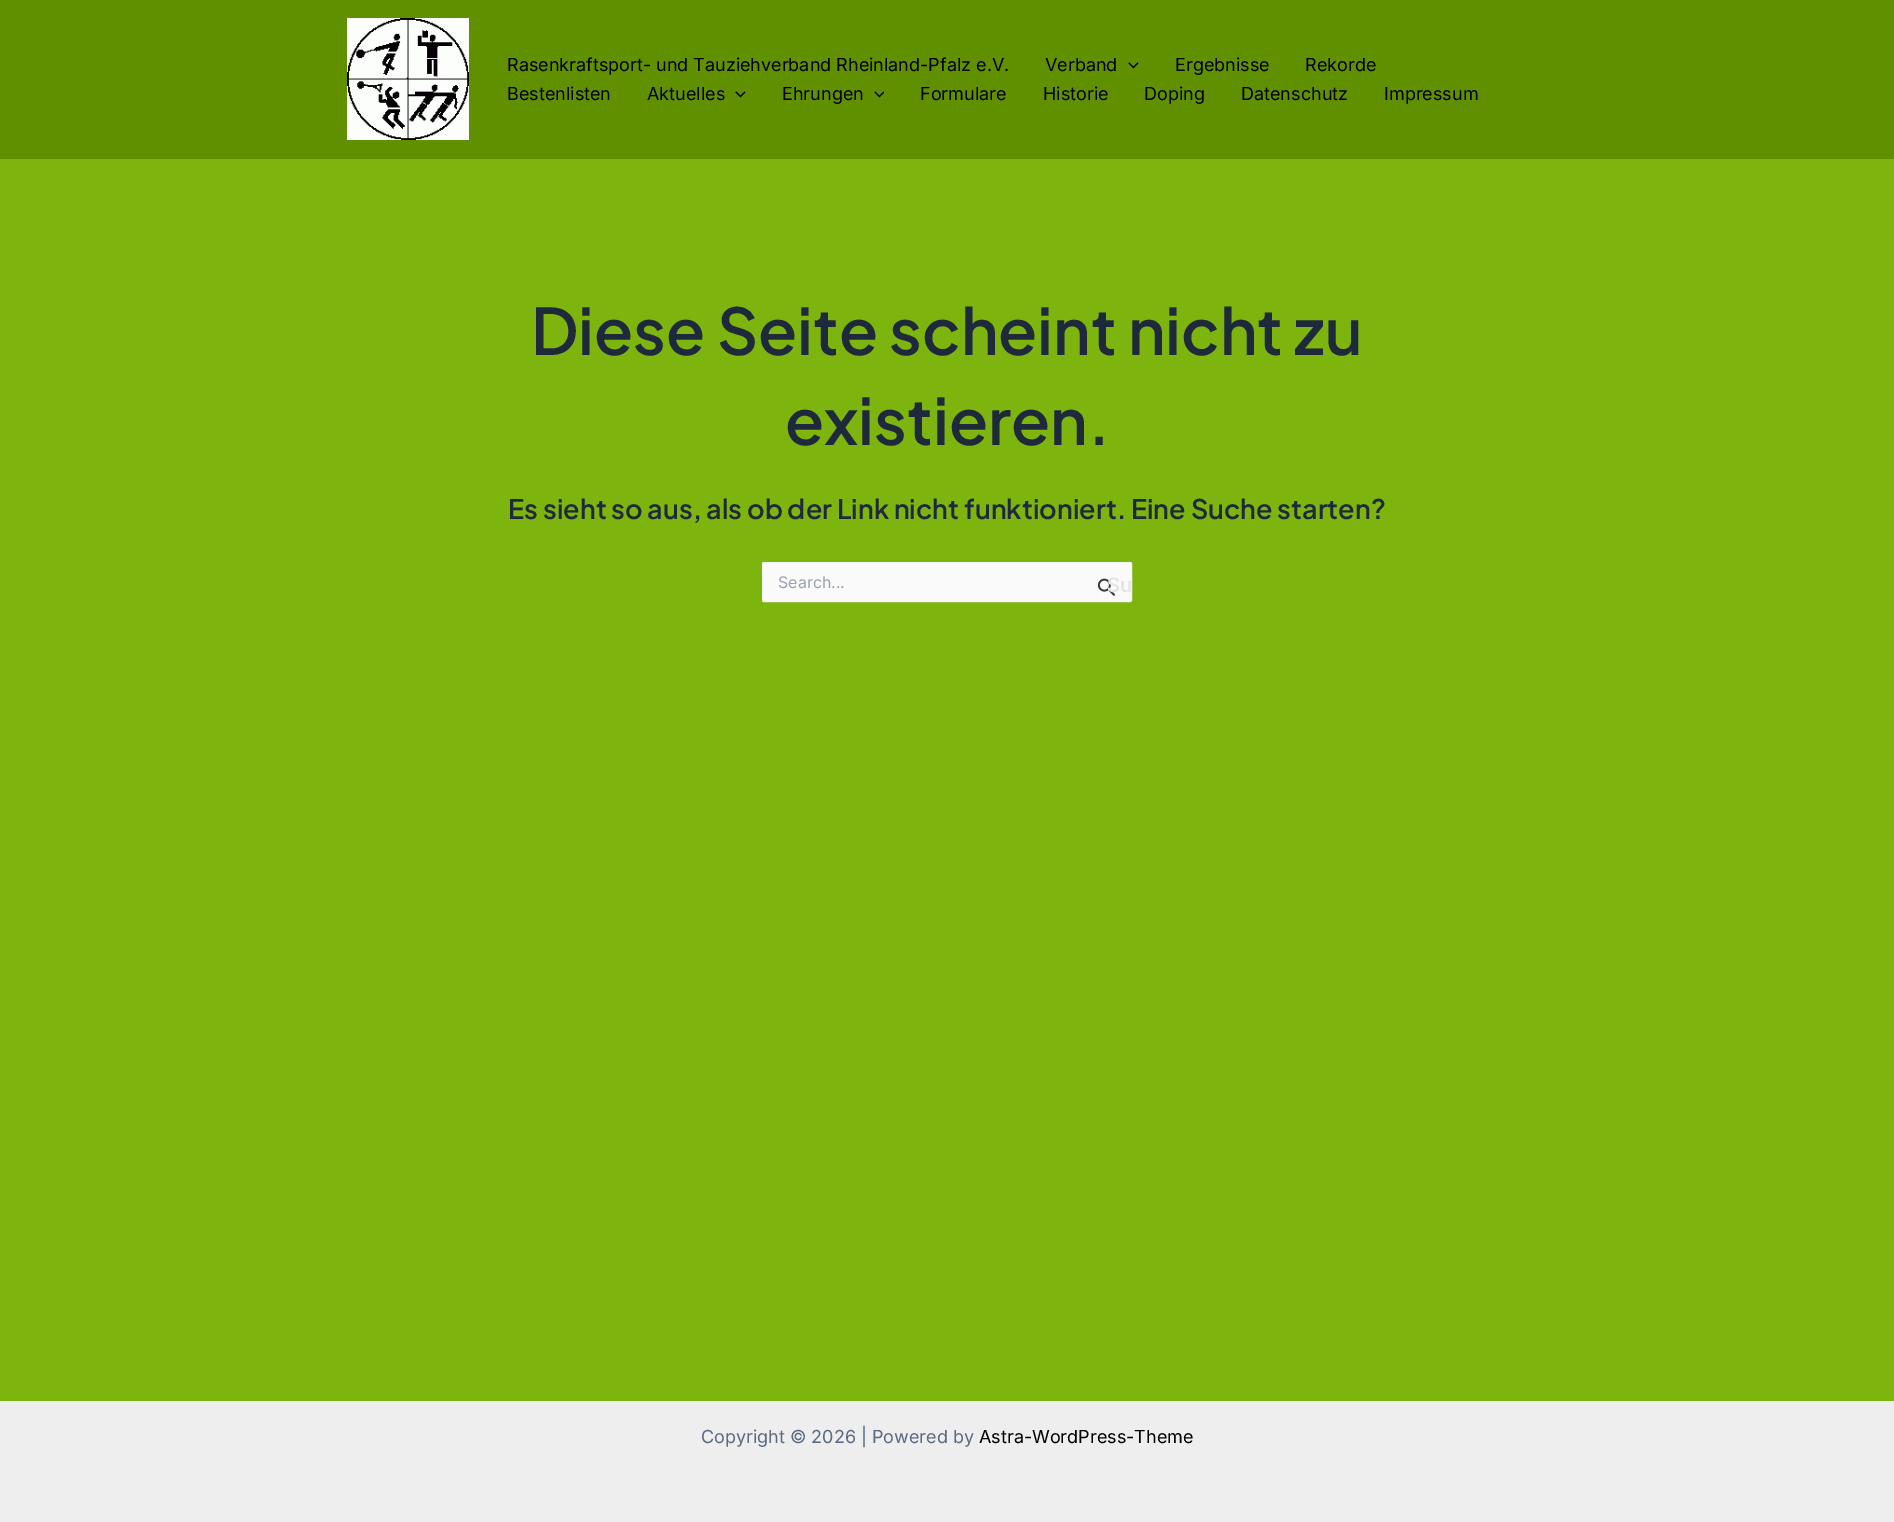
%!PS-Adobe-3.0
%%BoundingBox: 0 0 1894 1522
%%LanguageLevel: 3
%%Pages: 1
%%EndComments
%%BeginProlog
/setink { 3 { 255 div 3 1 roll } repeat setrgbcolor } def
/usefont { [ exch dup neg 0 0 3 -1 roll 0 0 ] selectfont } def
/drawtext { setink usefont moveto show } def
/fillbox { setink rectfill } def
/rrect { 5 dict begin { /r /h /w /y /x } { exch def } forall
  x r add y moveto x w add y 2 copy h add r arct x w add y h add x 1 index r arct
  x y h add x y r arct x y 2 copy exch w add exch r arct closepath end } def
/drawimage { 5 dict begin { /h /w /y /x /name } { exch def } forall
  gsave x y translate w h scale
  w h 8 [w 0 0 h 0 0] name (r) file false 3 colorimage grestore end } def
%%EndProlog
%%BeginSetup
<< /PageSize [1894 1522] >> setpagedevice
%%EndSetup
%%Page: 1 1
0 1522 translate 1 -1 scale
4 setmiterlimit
0 0 1894 1522 125 181 14 fillbox
0 0 1894 159 96 144 0 fillbox
(assets/img1.rgb) 347 18 122 122 drawimage
(Rasenkraftsport- und Tauziehverband Rheinland-Pfalz e.V.) 507 71 /Inter-Regular 18 0 0 0 drawtext
(Verband) 1045 71 /Inter-Regular 18 0 0 0 drawtext
(assets/img2.rgb) 1128 62 11 7 drawimage
(Ergebnisse) 1175 71 /Inter-Regular 18 0 0 0 drawtext
(Rekorde) 1305 71 /Inter-Regular 18 0 0 0 drawtext
(Bestenlisten) 507 100 /Inter-Regular 18 0 0 0 drawtext
(Aktuelles) 647 100 /Inter-Regular 18 0 0 0 drawtext
(assets/img2.rgb) 735 91 11 7 drawimage
(Ehrungen) 782 100 /Inter-Regular 18 0 0 0 drawtext
(assets/img3.rgb) 874 91 10 7 drawimage
(Formulare) 920 100 /Inter-Regular 18 0 0 0 drawtext
(Historie) 1043 100 /Inter-Regular 18 0 0 0 drawtext
(Doping) 1144 100 /Inter-Regular 18 0 0 0 drawtext
(Datenschutz) 1241 100 /Inter-Regular 18 0 0 0 drawtext
(Impressum) 1384 100 /Inter-Regular 18 0 0 0 drawtext
(Diese Seite scheint nicht zu) 531 355 /PlusJakartaSans-SemiBold 64 30 41 59 drawtext
(existieren.) 785 445 /PlusJakartaSans-SemiBold 64 30 41 59 drawtext
(Es sieht so aus, als ob der Link nicht funktioniert. Eine Suche starten?) 508 519 /PlusJakartaSans-SemiBold 27 30 41 59 drawtext
250 250 250 setink
762.5 562.5 369 39 1.5 rrect gsave fill grestore
242 245 247 setink
stroke
(Search...) 778 588 /Inter-Regular 16 156 163 175 drawtext
(assets/img4.rgb) 1097 578 18 18 drawimage
(Su) 1107 592 /Inter-SemiBold 20 229 229 229 drawtext
0 1402 1894 120 238 238 238 fillbox
0 1401 1894 1 234 234 234 fillbox
(Copyright © 2026 | Powered by) 701 1443 /Inter-Regular 18 92 106 129 drawtext
(Astra-WordPress-Theme) 979 1443 /Inter-Regular 18 0 0 0 drawtext
showpage
%%EOF
